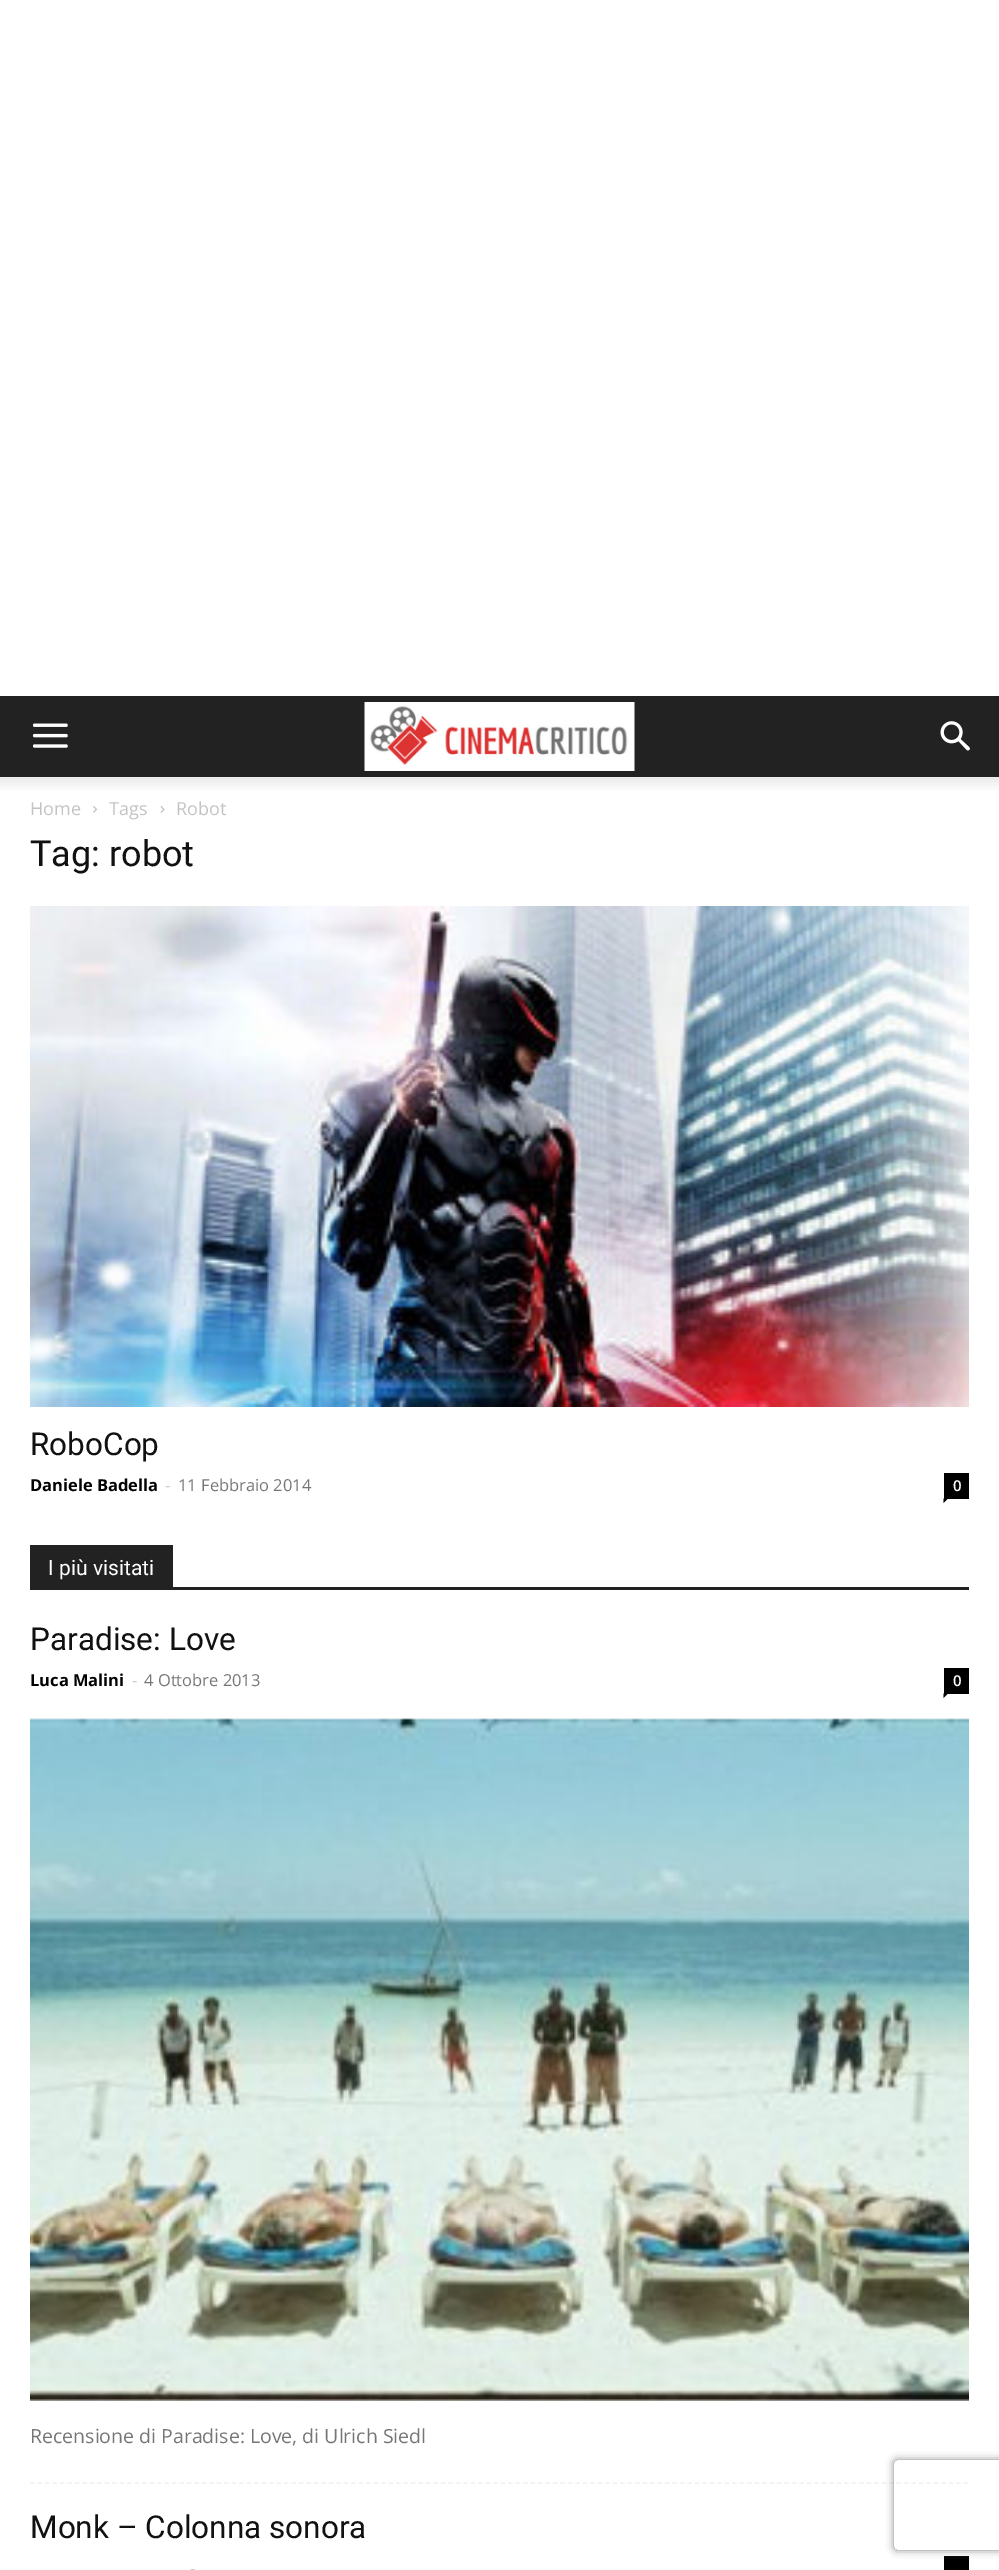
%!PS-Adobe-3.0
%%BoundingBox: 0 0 999 2570
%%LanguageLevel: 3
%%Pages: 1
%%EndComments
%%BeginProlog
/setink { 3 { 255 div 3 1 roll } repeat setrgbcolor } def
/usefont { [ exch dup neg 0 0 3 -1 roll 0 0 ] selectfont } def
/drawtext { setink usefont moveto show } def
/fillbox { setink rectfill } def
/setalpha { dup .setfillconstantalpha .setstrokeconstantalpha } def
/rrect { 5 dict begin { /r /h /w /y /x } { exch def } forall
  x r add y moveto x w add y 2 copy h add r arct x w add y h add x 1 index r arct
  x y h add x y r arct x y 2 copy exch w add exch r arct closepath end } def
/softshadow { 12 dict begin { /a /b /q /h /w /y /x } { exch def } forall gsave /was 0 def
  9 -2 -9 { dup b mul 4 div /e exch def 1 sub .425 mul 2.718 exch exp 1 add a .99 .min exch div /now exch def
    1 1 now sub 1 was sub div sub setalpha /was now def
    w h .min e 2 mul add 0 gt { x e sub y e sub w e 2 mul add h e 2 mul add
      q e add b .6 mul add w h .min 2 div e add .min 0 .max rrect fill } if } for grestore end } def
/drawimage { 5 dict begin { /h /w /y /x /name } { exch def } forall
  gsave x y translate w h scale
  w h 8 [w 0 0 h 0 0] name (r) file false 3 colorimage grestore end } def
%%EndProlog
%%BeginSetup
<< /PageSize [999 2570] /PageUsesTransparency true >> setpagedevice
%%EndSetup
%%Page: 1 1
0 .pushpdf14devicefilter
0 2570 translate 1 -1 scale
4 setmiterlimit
0 0 999 2570 255 255 255 fillbox
0 696 999 81 34 34 34 fillbox
(assets/img1.rgb) 33 723 35 25 drawimage
(assets/img2.rgb) 364 702 271 69 drawimage
(assets/img3.rgb) 940 721 30 30 drawimage
(assets/img4.rgb) 0 777 999 13 drawimage
(Home) 30 815 /OpenSans-Regular 18 195 195 195 drawtext
(assets/img5.rgb) 93 806 4 7 drawimage
(Tags) 109 815 /OpenSans-Regular 18 195 195 195 drawtext
(assets/img6.rgb) 160 806 5 7 drawimage
(Robot) 176 815 /OpenSans-Regular 18 195 195 195 drawtext
(Tag: robot) 30 866 /Roboto-Regular 36 17 17 17 drawtext
(assets/img7.rgb) 30 906 939 501 drawimage
(RoboCop) 30 1455 /Roboto-Regular 31.5 17 17 17 drawtext
(Daniele Badella) 30 1491 /OpenSans-Bold 16.5 0 0 0 drawtext
(-) 165 1491 /OpenSans-Regular 16.5 204 204 204 drawtext
(11 Febbraio 2014) 178 1491 /OpenSans-Regular 16.5 118 118 118 drawtext
944 1473 25 26 0 0 0 fillbox
(0) 953 1491 /OpenSans-SemiBold 15 255 255 255 drawtext
0 0 0 setink
943.5 1498.5 moveto 948 1498.5 lineto 943.5 1503 lineto closepath fill
30 1587 939 3 34 34 34 fillbox
30 1545 143 42 34 34 34 fillbox
(I più visitati) 48 1575 /Roboto-Regular 21 255 255 255 drawtext
242 242 242 setink
1.5 setlinewidth
[4.5 2.97] 0 setdash
30 2483 moveto 969 2483 lineto stroke
(Paradise: Love) 30 1650 /Roboto-Regular 31.5 17 17 17 drawtext
(Luca Malini) 30 1686 /OpenSans-Bold 16.5 0 0 0 drawtext
(-) 132 1686 /OpenSans-Regular 16.5 204 204 204 drawtext
(4 Ottobre 2013) 144 1686 /OpenSans-Regular 16.5 118 118 118 drawtext
944 1668 25 26 0 0 0 fillbox
(0) 953 1686 /OpenSans-SemiBold 15 255 255 255 drawtext
0 0 0 setink
943.5 1693.5 moveto 948 1693.5 lineto 943.5 1698 lineto closepath fill
(assets/img8.rgb) 30 1718 939 683 drawimage
(Recensione di Paradise: Love, di Ulrich Siedl) 30 2443 /OpenSans-Regular 19.5 118 118 118 drawtext
(Monk – Colonna sonora) 30 2538 /Roboto-Regular 31.5 17 17 17 drawtext
(-) 190 2574 /OpenSans-Regular 16.5 204 204 204 drawtext
944 2556 25 14 0 0 0 fillbox
gsave
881 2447 moveto 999 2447 lineto 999 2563 lineto 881 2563 lineto closepath 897 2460 moveto 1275 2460 lineto 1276.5 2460 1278 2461.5 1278 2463 curveto 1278 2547 lineto 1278 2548.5 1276.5 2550 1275 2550 curveto 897 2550 lineto 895.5 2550 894 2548.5 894 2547 curveto 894 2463 lineto 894 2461.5 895.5 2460 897 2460 curveto closepath eoclip newpath
128 128 128 setink
894 2460 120 90 3 4 1 softshadow
grestore
.poppdf14devicefilter showpage
%%EOF
